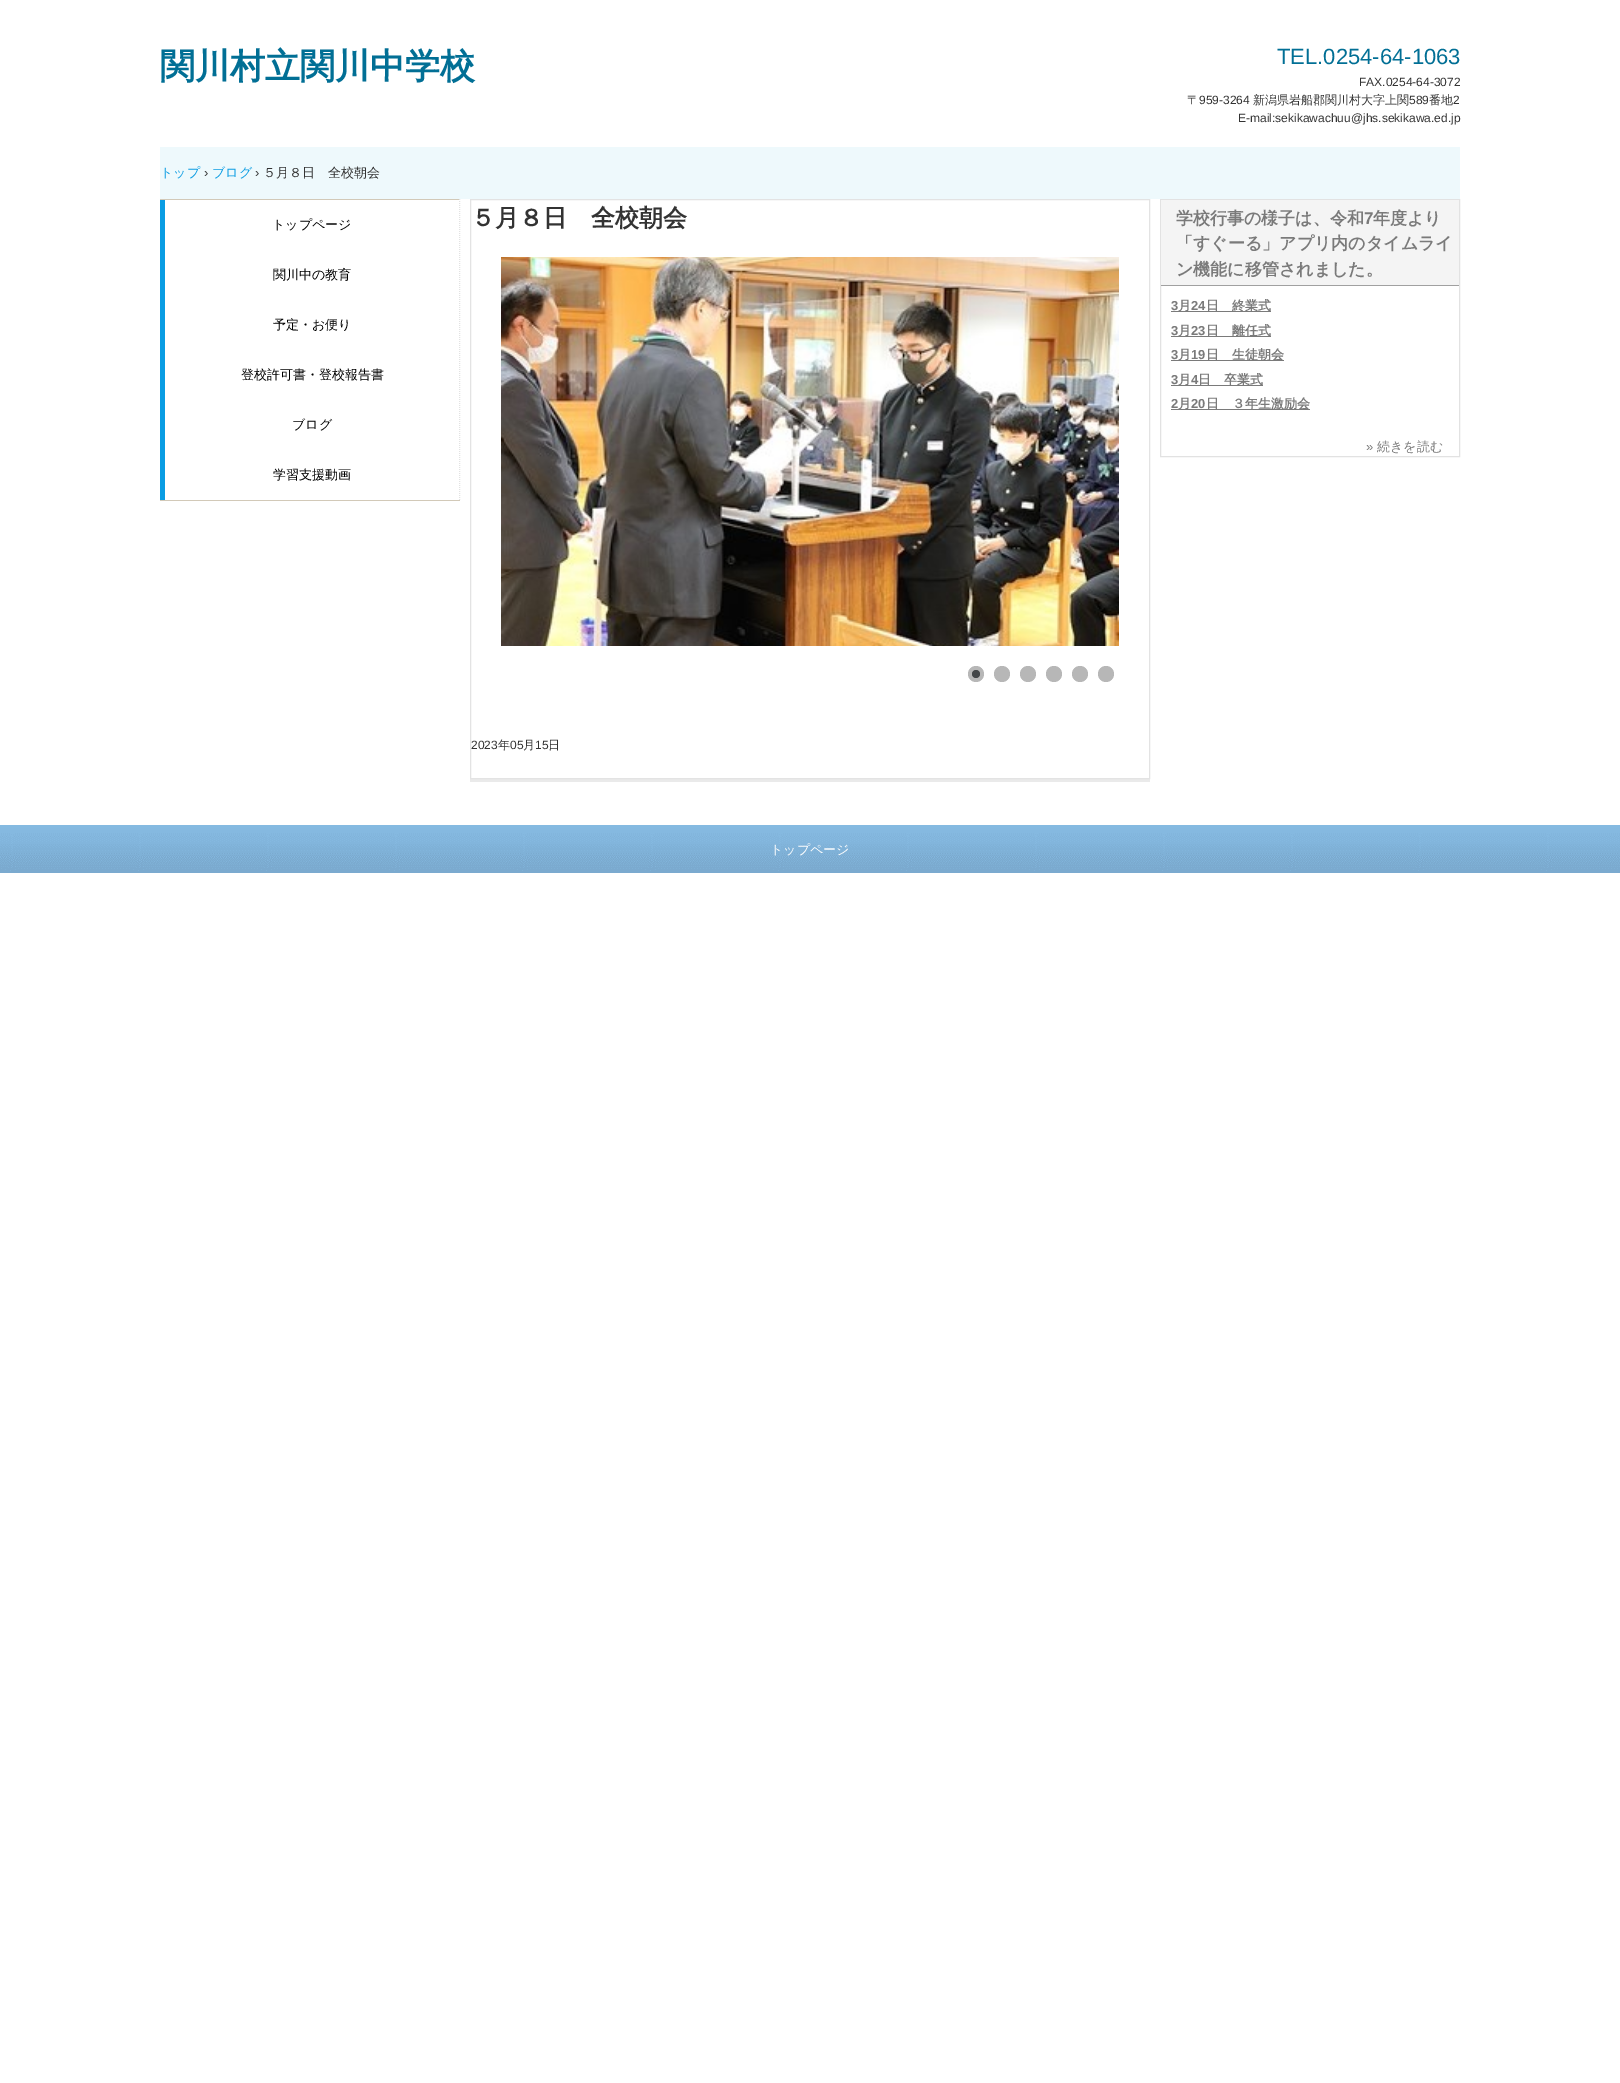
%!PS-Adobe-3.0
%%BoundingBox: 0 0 1620 2083
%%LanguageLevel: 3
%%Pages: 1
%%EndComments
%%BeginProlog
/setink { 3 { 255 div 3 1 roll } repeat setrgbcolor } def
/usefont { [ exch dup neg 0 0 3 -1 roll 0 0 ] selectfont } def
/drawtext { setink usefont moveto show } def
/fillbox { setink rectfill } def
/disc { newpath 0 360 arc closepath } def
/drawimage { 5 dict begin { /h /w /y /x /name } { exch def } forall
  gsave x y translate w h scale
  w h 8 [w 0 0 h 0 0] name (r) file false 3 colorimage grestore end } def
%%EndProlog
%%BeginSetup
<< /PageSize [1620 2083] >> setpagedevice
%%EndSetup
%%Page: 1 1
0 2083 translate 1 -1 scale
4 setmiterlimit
0 0 1620 2083 255 255 255 fillbox
(関川村立関川中学校) 160 78 /WenQuanYiZenHei-Bold 35 1 111 149 drawtext
(TEL.0254-64-1063) 1277 64 /LiberationSans-Regular 22 1 111 149 drawtext
(FAX.0254-64-3072) 1359 86 /LiberationSans-Regular 12 51 51 51 drawtext
(〒) 1187 104 /WenQuanYiZenHei-Medium 12 51 51 51 drawtext
(959-3264) 1199 104 /LiberationSans-Regular 12 51 51 51 drawtext
(新潟県岩船郡関川村大字上関) 1253 104 /WenQuanYiZenHei-Medium 12 51 51 51 drawtext
(589) 1409 104 /LiberationSans-Regular 12 51 51 51 drawtext
(番地) 1429 104 /WenQuanYiZenHei-Medium 12 51 51 51 drawtext
(2) 1453 104 /LiberationSans-Regular 12 51 51 51 drawtext
(E-mail:sekikawachuu@jhs.sekikawa.ed.jp) 1238 122 /LiberationSans-Regular 12 51 51 51 drawtext
160 147 1300 52 238 249 252 fillbox
(トップ) 160 177 /WenQuanYiZenHei-Medium 13 9 156 227 drawtext
(›) 204 177 /LiberationSans-Regular 13 51 51 51 drawtext
(ブログ) 212 177 /WenQuanYiZenHei-Medium 13 9 156 227 drawtext
(›) 255 177 /LiberationSans-Regular 13 51 51 51 drawtext
(５月８日　全校朝会) 263 177 /WenQuanYiZenHei-Medium 13 51 51 51 drawtext
160 199 300 1 210 201 184 fillbox
226 226 226 setink
[1 1] 0 setdash
459.5 199 moveto 459.5 501 lineto stroke
160 500 300 1 210 201 184 fillbox
160 200 5 300 9 156 227 fillbox
(トップページ) 272 229 /WenQuanYiZenHei-Medium 13 0 0 0 drawtext
(関川中の教育) 273 279 /WenQuanYiZenHei-Medium 13 0 0 0 drawtext
(予定・お便り) 273 329 /WenQuanYiZenHei-Medium 13 0 0 0 drawtext
(登校許可書・登校報告書) 241 379 /WenQuanYiZenHei-Medium 13 0 0 0 drawtext
(ブログ) 292 429 /WenQuanYiZenHei-Medium 13 0 0 0 drawtext
(学習支援動画) 273 479 /WenQuanYiZenHei-Medium 13 0 0 0 drawtext
470 779 680 3 234 234 234 fillbox
227 227 227 setink
[] 0 setdash
470.5 199.5 679 579 rectstroke
(５月８日　全校朝会) 471 226 /WenQuanYiZenHei-Bold 24 51 51 51 drawtext
(assets/img1.rgb) 501 257 618 389 drawimage
183 183 183 setink
976 674 8 disc fill
67 70 72 setink
976 674 4 disc fill
183 183 183 setink
1002 674 8 disc fill
1028 674 8 disc fill
1054 674 8 disc fill
1080 674 8 disc fill
1106 674 8 disc fill
(2023) 471 749 /LiberationSans-Regular 12 51 51 51 drawtext
(年) 498 749 /WenQuanYiZenHei-Medium 12 51 51 51 drawtext
(05) 510 749 /LiberationSans-Regular 12 51 51 51 drawtext
(月) 523 749 /WenQuanYiZenHei-Medium 12 51 51 51 drawtext
(15) 535 749 /LiberationSans-Regular 12 51 51 51 drawtext
(日) 548 749 /WenQuanYiZenHei-Medium 12 51 51 51 drawtext
226 226 226 setink
1160.5 199.5 299 257 rectstroke
1161 200 298 85 244 244 244 fillbox
1161 285 298 1 160 160 160 fillbox
(学校行事の様子は、令和) 1176 224 /WenQuanYiZenHei-Bold 17 122 122 122 drawtext
(7) 1364 224 /LiberationSans-Bold 17 122 122 122 drawtext
(年度より) 1373 224 /WenQuanYiZenHei-Bold 17 122 122 122 drawtext
(「すぐーる」アプリ内のタイムライ) 1176 249 /WenQuanYiZenHei-Bold 17 122 122 122 drawtext
(ン機能に移管されました。) 1176 275 /WenQuanYiZenHei-Bold 17 122 122 122 drawtext
(3) 1171 310 /LiberationSans-Bold 13 122 122 122 drawtext
1171 311 100 1 122 122 122 fillbox
(月) 1178 310 /WenQuanYiZenHei-Bold 13 122 122 122 drawtext
(24) 1191 310 /LiberationSans-Bold 13 122 122 122 drawtext
(日　終業式) 1206 310 /WenQuanYiZenHei-Bold 13 122 122 122 drawtext
(3) 1171 335 /LiberationSans-Bold 13 122 122 122 drawtext
1171 336 100 1 122 122 122 fillbox
(月) 1178 335 /WenQuanYiZenHei-Bold 13 122 122 122 drawtext
(23) 1191 335 /LiberationSans-Bold 13 122 122 122 drawtext
(日　離任式) 1206 335 /WenQuanYiZenHei-Bold 13 122 122 122 drawtext
(3) 1171 359 /LiberationSans-Bold 13 122 122 122 drawtext
1171 360 113 1 122 122 122 fillbox
(月) 1178 359 /WenQuanYiZenHei-Bold 13 122 122 122 drawtext
(19) 1191 359 /LiberationSans-Bold 13 122 122 122 drawtext
(日　生徒朝会) 1206 359 /WenQuanYiZenHei-Bold 13 122 122 122 drawtext
(3) 1171 384 /LiberationSans-Bold 13 122 122 122 drawtext
1171 385 92 1 122 122 122 fillbox
(月) 1178 384 /WenQuanYiZenHei-Bold 13 122 122 122 drawtext
(4) 1191 384 /LiberationSans-Bold 13 122 122 122 drawtext
(日　卒業式) 1198 384 /WenQuanYiZenHei-Bold 13 122 122 122 drawtext
(2) 1171 408 /LiberationSans-Bold 13 122 122 122 drawtext
1171 409 139 1 122 122 122 fillbox
(月) 1178 408 /WenQuanYiZenHei-Bold 13 122 122 122 drawtext
(20) 1191 408 /LiberationSans-Bold 13 122 122 122 drawtext
(日　３年生激励会) 1206 408 /WenQuanYiZenHei-Bold 13 122 122 122 drawtext
(») 1366 451 /LiberationSans-Regular 13 122 122 122 drawtext
(続きを読む) 1377 451 /WenQuanYiZenHei-Medium 13 122 122 122 drawtext
(assets/img2.rgb) 0 825 1620 48 drawimage
(トップページ) 770 854 /WenQuanYiZenHei-Medium 13 255 255 255 drawtext
showpage
%%EOF
